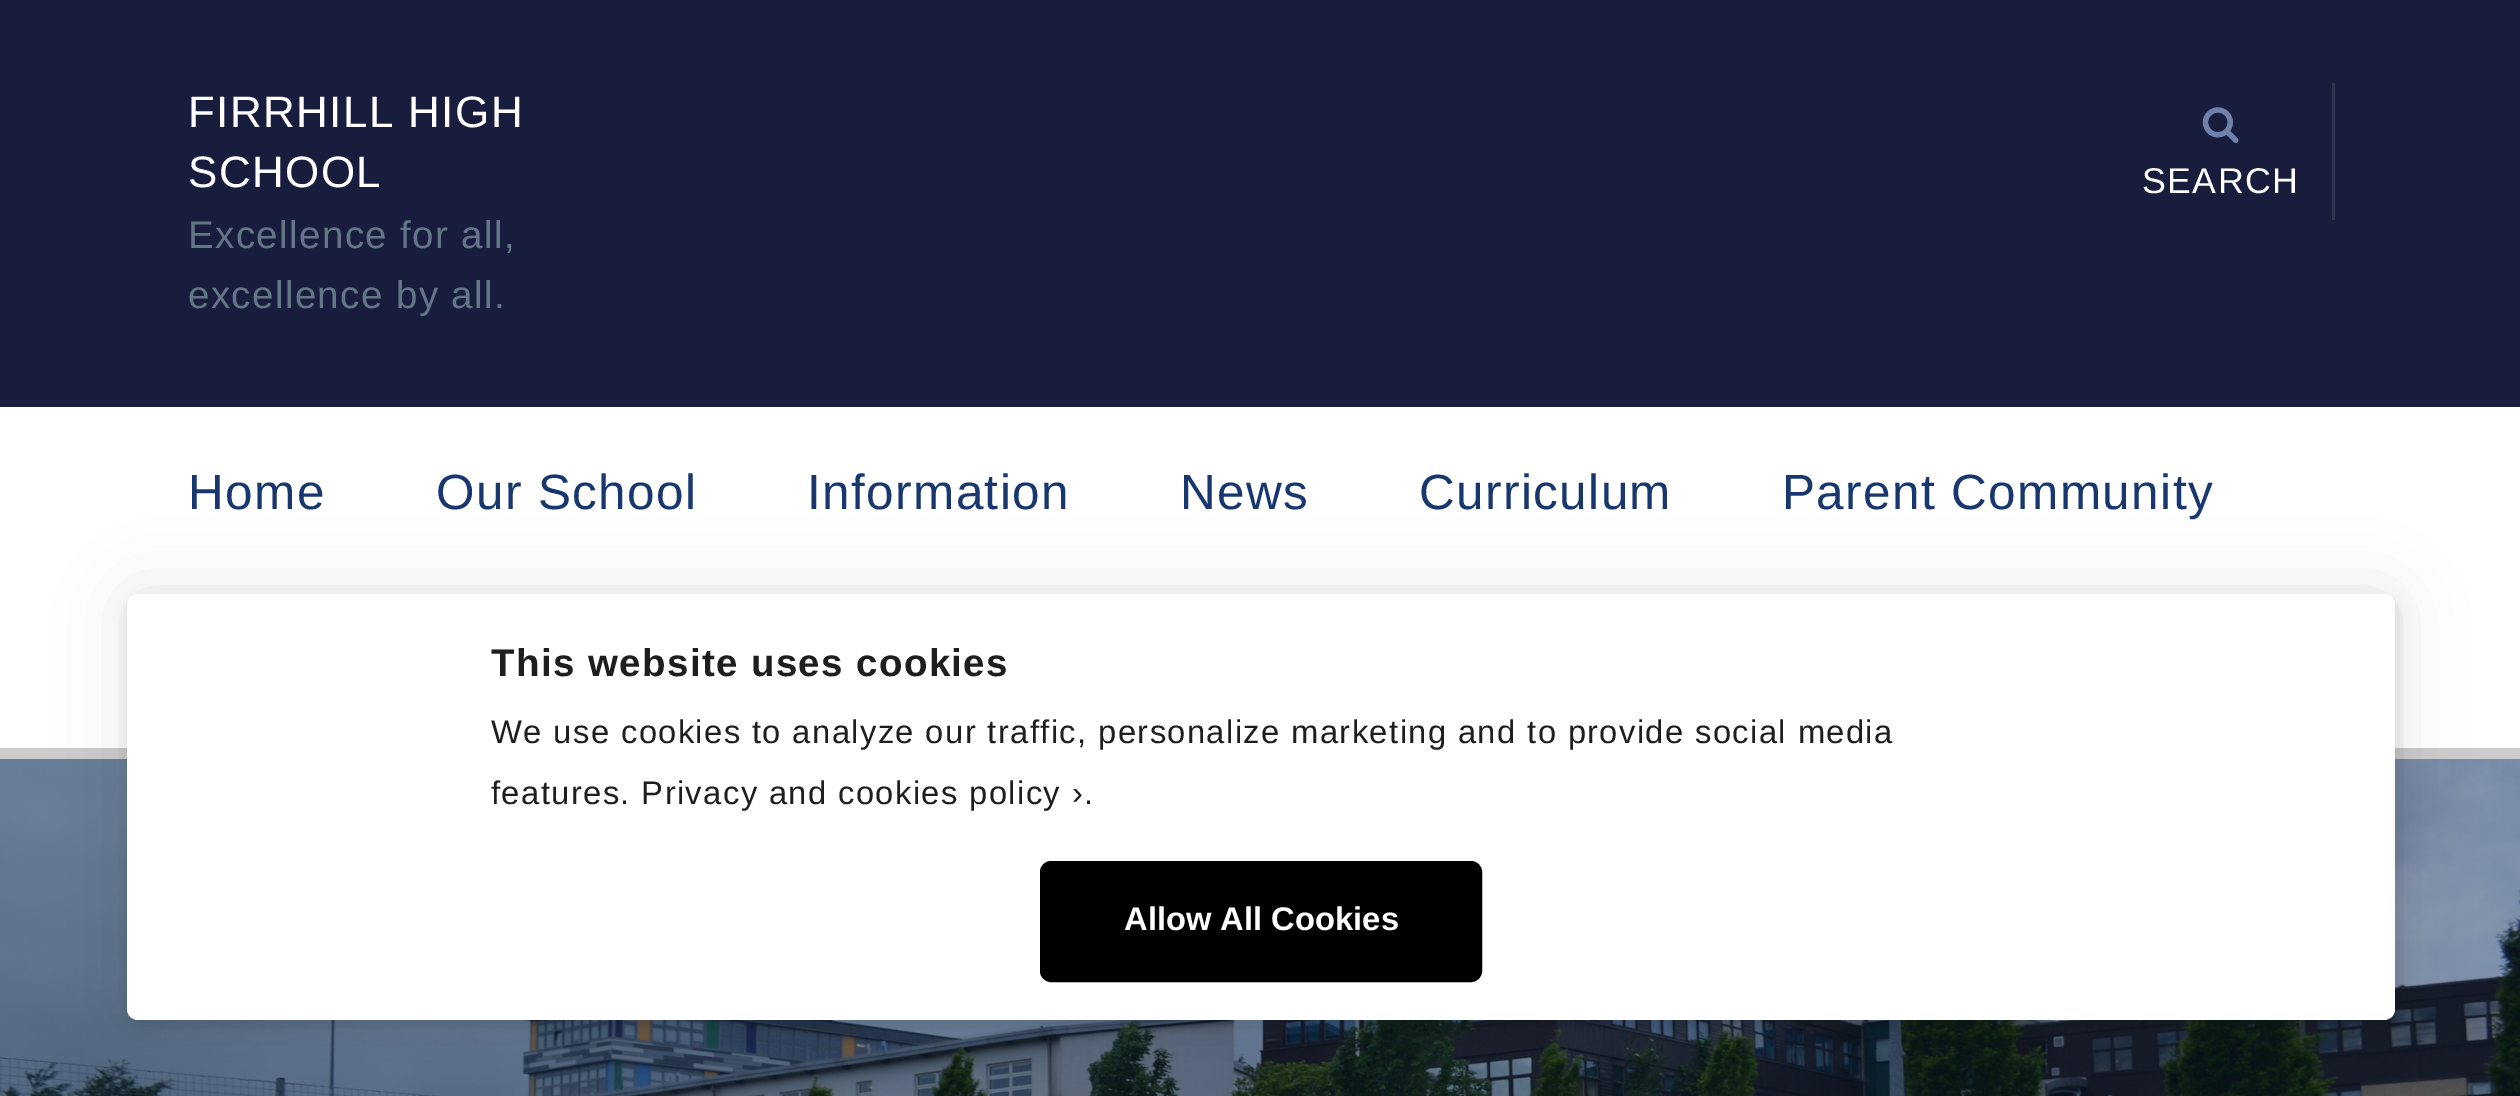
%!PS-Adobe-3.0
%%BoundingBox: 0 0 2520 1096
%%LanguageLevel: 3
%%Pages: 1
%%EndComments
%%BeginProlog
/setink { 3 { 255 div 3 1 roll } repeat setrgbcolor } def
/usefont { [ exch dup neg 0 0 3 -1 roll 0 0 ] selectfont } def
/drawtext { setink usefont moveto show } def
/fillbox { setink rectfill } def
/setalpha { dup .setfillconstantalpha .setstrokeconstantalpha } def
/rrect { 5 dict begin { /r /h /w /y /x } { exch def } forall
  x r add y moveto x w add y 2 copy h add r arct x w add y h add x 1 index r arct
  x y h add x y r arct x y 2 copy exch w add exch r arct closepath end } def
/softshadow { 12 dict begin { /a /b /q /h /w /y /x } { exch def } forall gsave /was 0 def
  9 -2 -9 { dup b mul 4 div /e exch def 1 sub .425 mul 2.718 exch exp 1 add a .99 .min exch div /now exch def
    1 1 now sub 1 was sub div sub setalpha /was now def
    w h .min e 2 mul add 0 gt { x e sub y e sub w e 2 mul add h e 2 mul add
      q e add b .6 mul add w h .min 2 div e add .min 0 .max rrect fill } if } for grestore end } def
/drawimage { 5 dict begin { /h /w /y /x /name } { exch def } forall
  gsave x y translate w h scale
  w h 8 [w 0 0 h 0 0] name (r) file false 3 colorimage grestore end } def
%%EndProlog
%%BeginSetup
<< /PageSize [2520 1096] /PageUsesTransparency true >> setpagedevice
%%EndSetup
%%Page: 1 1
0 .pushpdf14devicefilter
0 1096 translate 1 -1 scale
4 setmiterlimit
0 0 2520 1096 255 255 255 fillbox
0 0 2520 407 25 29 61 fillbox
/LiberationSans-Regular 44 usefont
255 255 255 setink
188 127 moveto 1.38 0 (FIRRHILL HIGH) ashow
188 187 moveto 1.38 0 (SCHOOL) ashow
/LiberationSans-Regular 38.5 usefont
99 117 135 setink
188 248 moveto 1.38 0 (Excellence for all,) ashow
188 308 moveto 1.38 0 (excellence by all.) ashow
2332 83 3 137 48 52 81 fillbox
(assets/img1.rgb) 2202 107 37 36 drawimage
/LiberationSans-Regular 35.75 usefont
255 255 255 setink
2142 193 moveto 1.38 0 (SEARCH) ashow
0 748 2520 11 204 204 204 fillbox
/LiberationSans-Regular 49.5 usefont
23 55 110 setink
188 509 moveto 1.38 0 (Home) ashow
436 509 moveto 1.38 0 (Our School) ashow
807 509 moveto 1.38 0 (Information) ashow
1180 509 moveto 1.38 0 (News) ashow
1419 509 moveto 1.38 0 (Curriculum) ashow
1782 509 moveto 1.38 0 (Parent Community) ashow
(assets/img2.rgb) 0 759 2520 337 drawimage
0 0 0 setink
129 600 2269 426 11 7 0.1 softshadow
127 594 2268 426 11 34.5 0.1 softshadow
255 255 255 setink
127 594 2268 426 11 rrect fill
/LiberationSans-Bold 38.5 usefont
30 30 30 setink
491 676 moveto 1.38 0 (This website uses cookies) ashow
/LiberationSans-Regular 32.75 usefont
491 743 moveto 1.38 0 (We use cookies to analyze our traffic, personalize marketing and to provide social media) ashow
491 804 moveto 1.38 0 (features. Privacy and cookies policy ›.) ashow
0 0 0 setink
1041.5 862.5 439 118 9.5 rrect gsave fill grestore
3 setlinewidth
stroke
(Allow All Cookies) 1124 930 /LiberationSans-Bold 32.75 255 255 255 drawtext
.poppdf14devicefilter showpage
%%EOF
